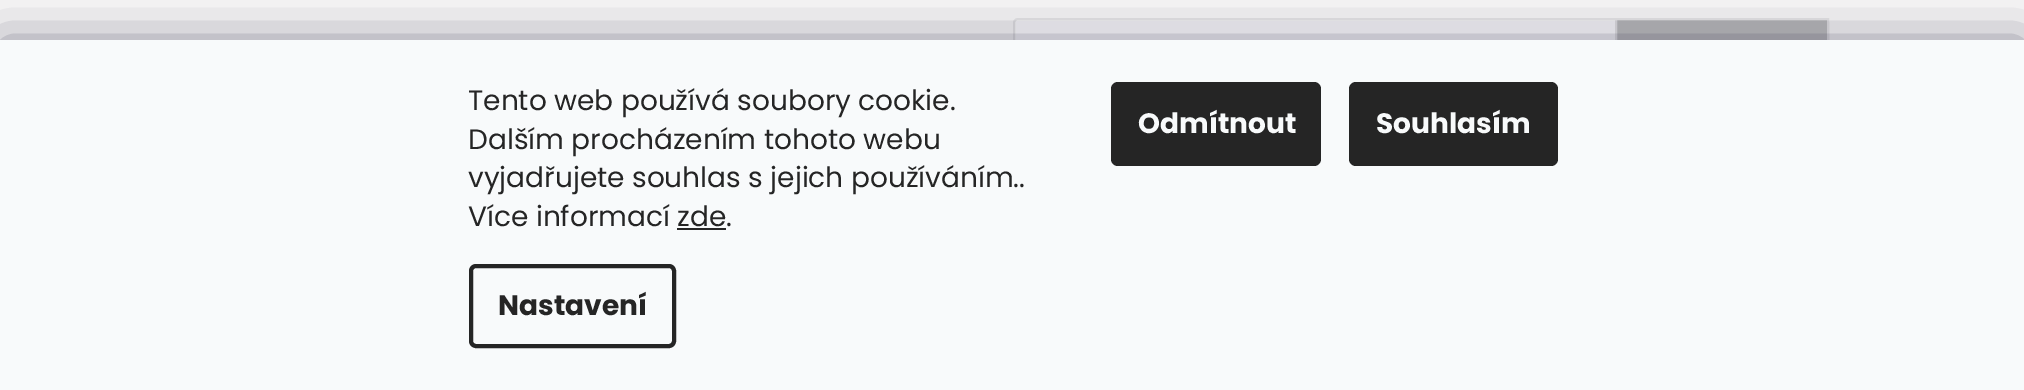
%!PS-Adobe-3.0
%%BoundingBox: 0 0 2024 390
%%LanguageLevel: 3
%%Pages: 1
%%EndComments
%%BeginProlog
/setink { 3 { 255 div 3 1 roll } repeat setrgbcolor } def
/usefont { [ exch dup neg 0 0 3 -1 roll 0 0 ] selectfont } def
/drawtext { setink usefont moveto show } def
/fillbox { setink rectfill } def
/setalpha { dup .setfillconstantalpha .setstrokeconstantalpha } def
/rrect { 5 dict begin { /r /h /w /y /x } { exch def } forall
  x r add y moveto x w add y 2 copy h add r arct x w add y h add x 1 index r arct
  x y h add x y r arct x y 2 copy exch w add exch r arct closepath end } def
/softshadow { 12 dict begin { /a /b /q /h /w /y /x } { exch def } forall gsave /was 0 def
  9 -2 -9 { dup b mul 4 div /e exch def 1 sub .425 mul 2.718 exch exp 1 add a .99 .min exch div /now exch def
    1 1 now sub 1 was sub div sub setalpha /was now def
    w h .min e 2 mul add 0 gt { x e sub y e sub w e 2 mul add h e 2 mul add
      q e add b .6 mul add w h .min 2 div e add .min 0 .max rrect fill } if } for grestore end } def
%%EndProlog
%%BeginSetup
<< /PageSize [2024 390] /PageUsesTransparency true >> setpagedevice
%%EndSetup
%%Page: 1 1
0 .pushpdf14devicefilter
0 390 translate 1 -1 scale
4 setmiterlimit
0 0 2024 390 249 249 249 fillbox
255 255 255 setink
1014 19 814 82 4 rrect gsave fill grestore
230 230 230 setink
2 setlinewidth
stroke
1617 20 210 20 191 191 191 fillbox
230 230 230 setink
1616 19 212 82 rectstroke
27 25 57 setink
0 40 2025 350 0 26 0.5 softshadow
0 40 2024 350 248 250 251 fillbox
(Tento web používá soubory cookie.) 468 110 /Poppins-Regular 28 37 37 37 drawtext
(Dalším procházením tohoto webu) 468 149 /Poppins-Regular 28 37 37 37 drawtext
(vyjadřujete souhlas s jejich používáním..) 468 187 /Poppins-Regular 28 37 37 37 drawtext
(Více informací zde.) 468 226 /Poppins-Regular 28 37 37 37 drawtext
677 228 49 2 37 37 37 fillbox
4 setlinewidth
471 266 203 80 5 rrect stroke
(Nastavení) 498 315 /Poppins-Bold 28 37 37 37 drawtext
1111 82 210 84 7 rrect fill
(Odmítnout) 1138 133 /Poppins-Bold 28 248 250 251 drawtext
37 37 37 setink
1349 82 209 84 7 rrect fill
(Souhlasím) 1376 133 /Poppins-Bold 28 248 250 251 drawtext
.poppdf14devicefilter showpage
%%EOF
